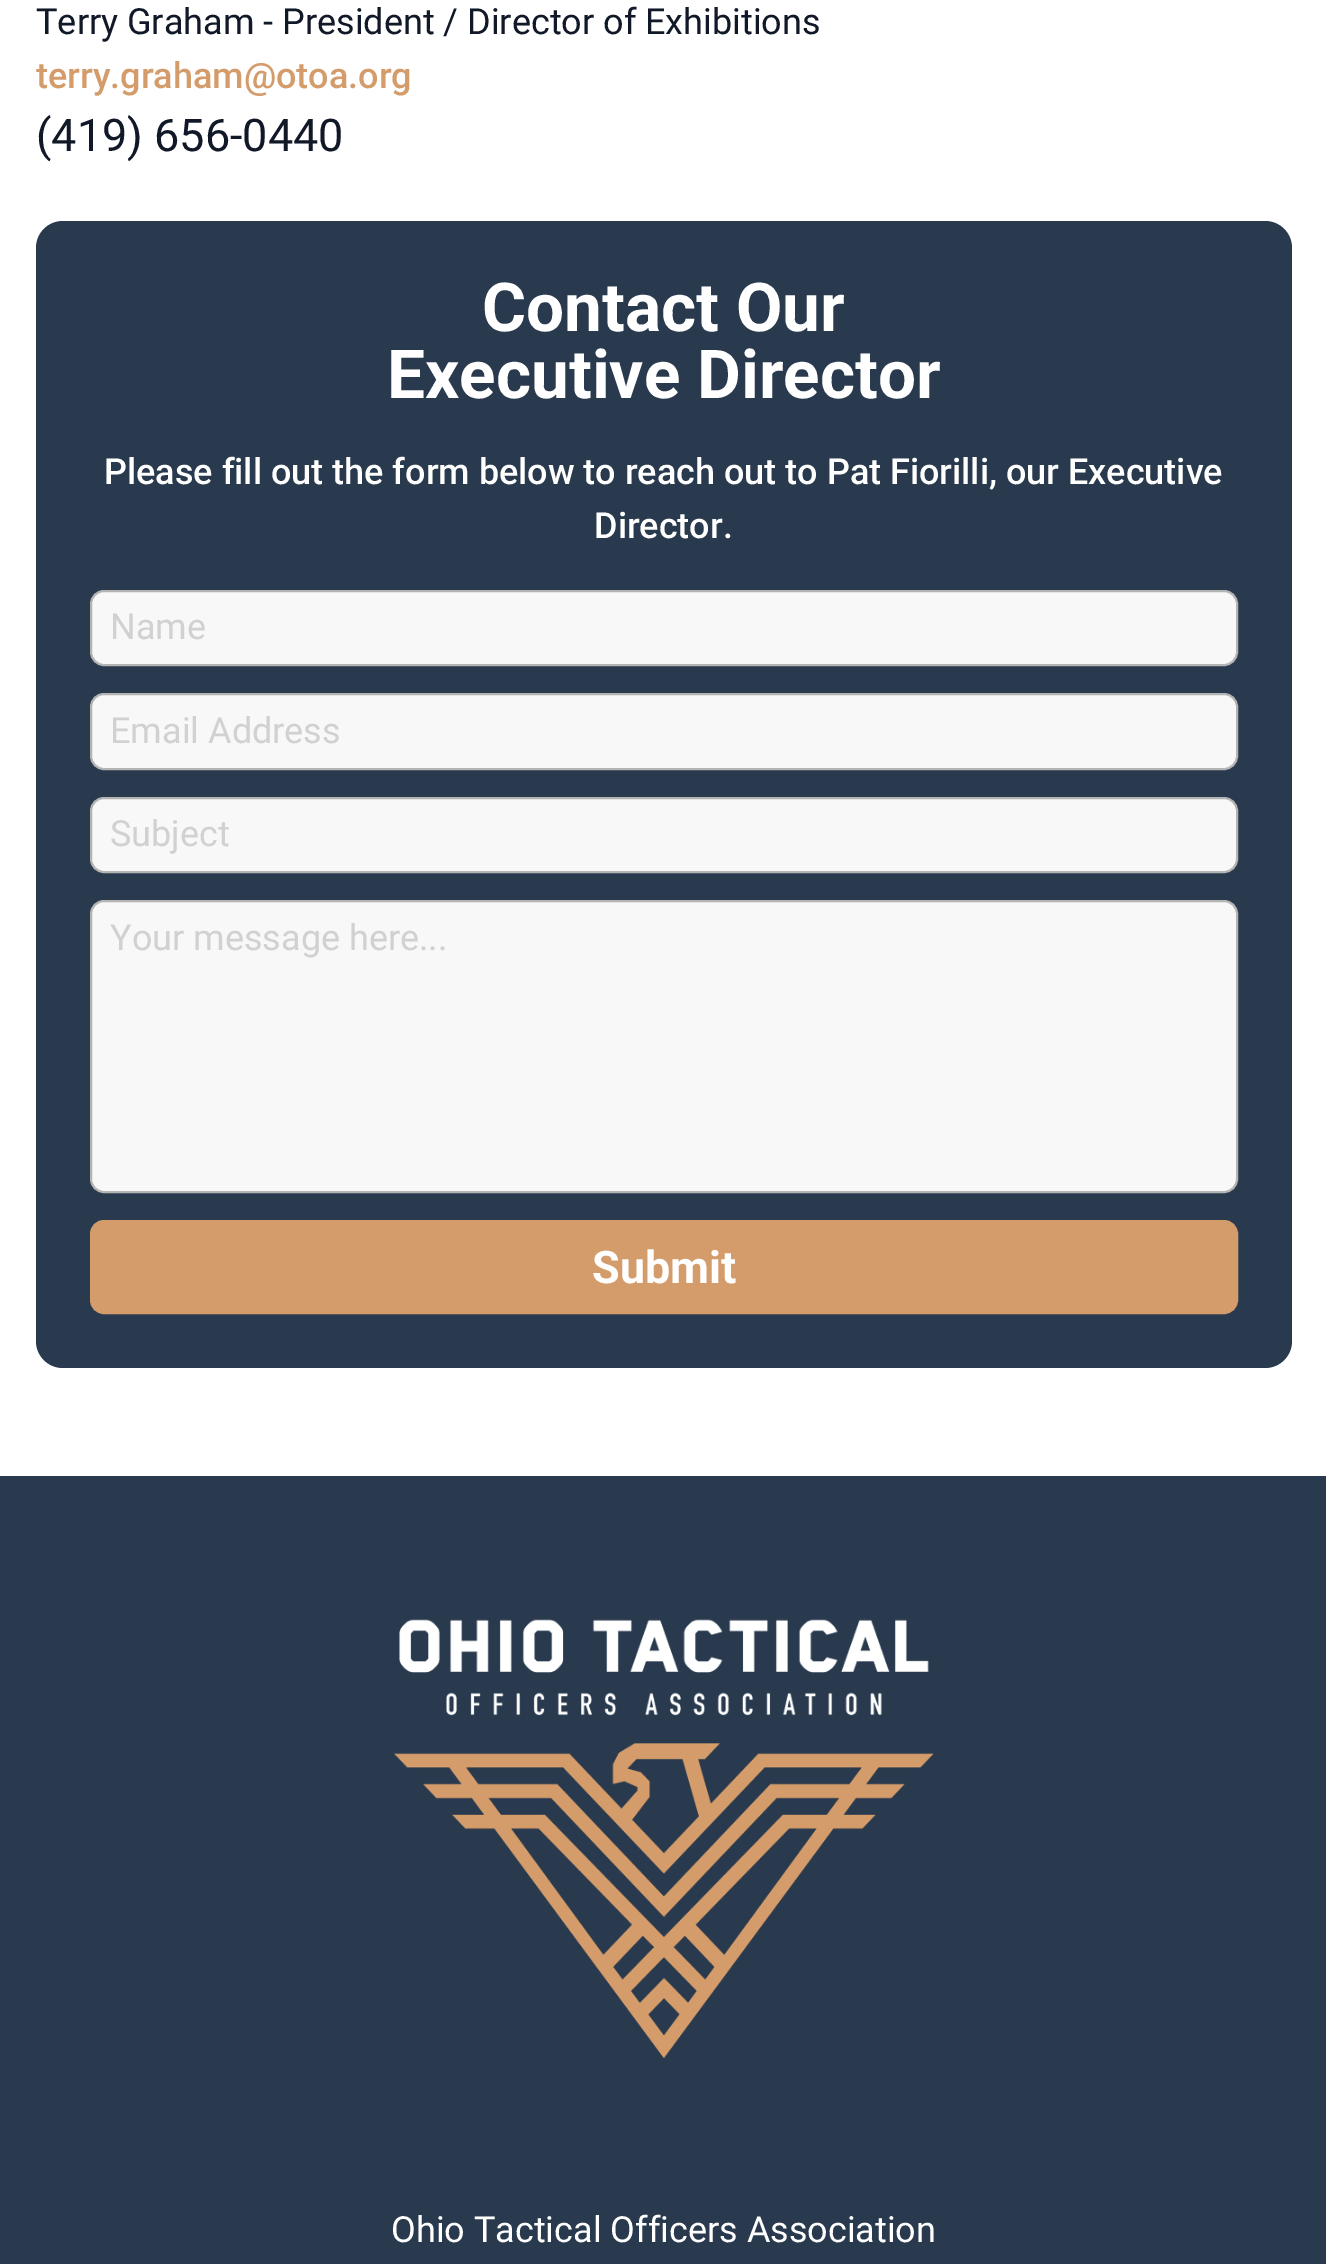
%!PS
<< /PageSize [1326 2264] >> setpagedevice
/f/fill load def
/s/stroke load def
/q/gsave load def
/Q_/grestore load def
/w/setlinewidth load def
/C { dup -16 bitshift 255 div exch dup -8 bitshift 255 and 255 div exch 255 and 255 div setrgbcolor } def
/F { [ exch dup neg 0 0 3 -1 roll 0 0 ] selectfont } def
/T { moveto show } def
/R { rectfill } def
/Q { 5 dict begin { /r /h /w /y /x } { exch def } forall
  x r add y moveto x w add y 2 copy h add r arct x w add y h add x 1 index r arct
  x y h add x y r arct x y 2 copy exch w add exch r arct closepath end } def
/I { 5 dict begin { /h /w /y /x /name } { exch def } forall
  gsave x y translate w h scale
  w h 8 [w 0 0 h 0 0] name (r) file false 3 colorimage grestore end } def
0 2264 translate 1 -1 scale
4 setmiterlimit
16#FFFFFF C
0 0 1326 2264 R
/Roboto-Regular 36 F
16#111827 C
(Terry Graham - President / Director of Exhibitions) 36 34 T
/Roboto-Medium 36 F
16#D49C6A C
(terry.graham@otoa.org) 36 88 T
/Roboto-Regular 45 F
16#111827 C
(\(419\) 656-0440) 36 151 T
16#293A4E C
36 221 1256 1147 27 Q f
/Roboto-Bold 67.5 F
16#FFFFFF C
(Contact Our) 482 331 T
(Executive Director) 387 398 T
/Roboto-Medium 36 F
(Please fill out the form below to reach out to Pat Fiorilli, our Executive) 104 484 T
(Director.) 594 538 T
16#F8F8F8 C
91 591 1146 74 13 Q q f Q_
16#B4B4B4 C
2 w
s
/Roboto-Regular 36 F
16#D1D1D1 C
(Name) 110 639 T
16#F8F8F8 C
91 694 1146 75 13 Q q f Q_
16#B4B4B4 C
s
16#D1D1D1 C
(Email Address) 110 743 T
16#F8F8F8 C
91 798 1146 74 13 Q q f Q_
16#B4B4B4 C
s
16#D1D1D1 C
(Subject) 110 846 T
16#F8F8F8 C
91 901 1146 291 13 Q q f Q_
16#B4B4B4 C
s
16#D1D1D1 C
(Your message here...) 110 950 T
16#D49C6A C
91 1221 1146 92 13 Q q f Q_
s
/Roboto-Bold 45 F
16#FFFFFF C
(Submit) 592 1283 T
16#293A4E C
0 1476 1326 788 R
(1.rgb) 394 1619 540 440 I
/Roboto-Regular 36 F
16#FFFFFF C
(Ohio Tactical Officers Association) 391 2242 T
showpage
